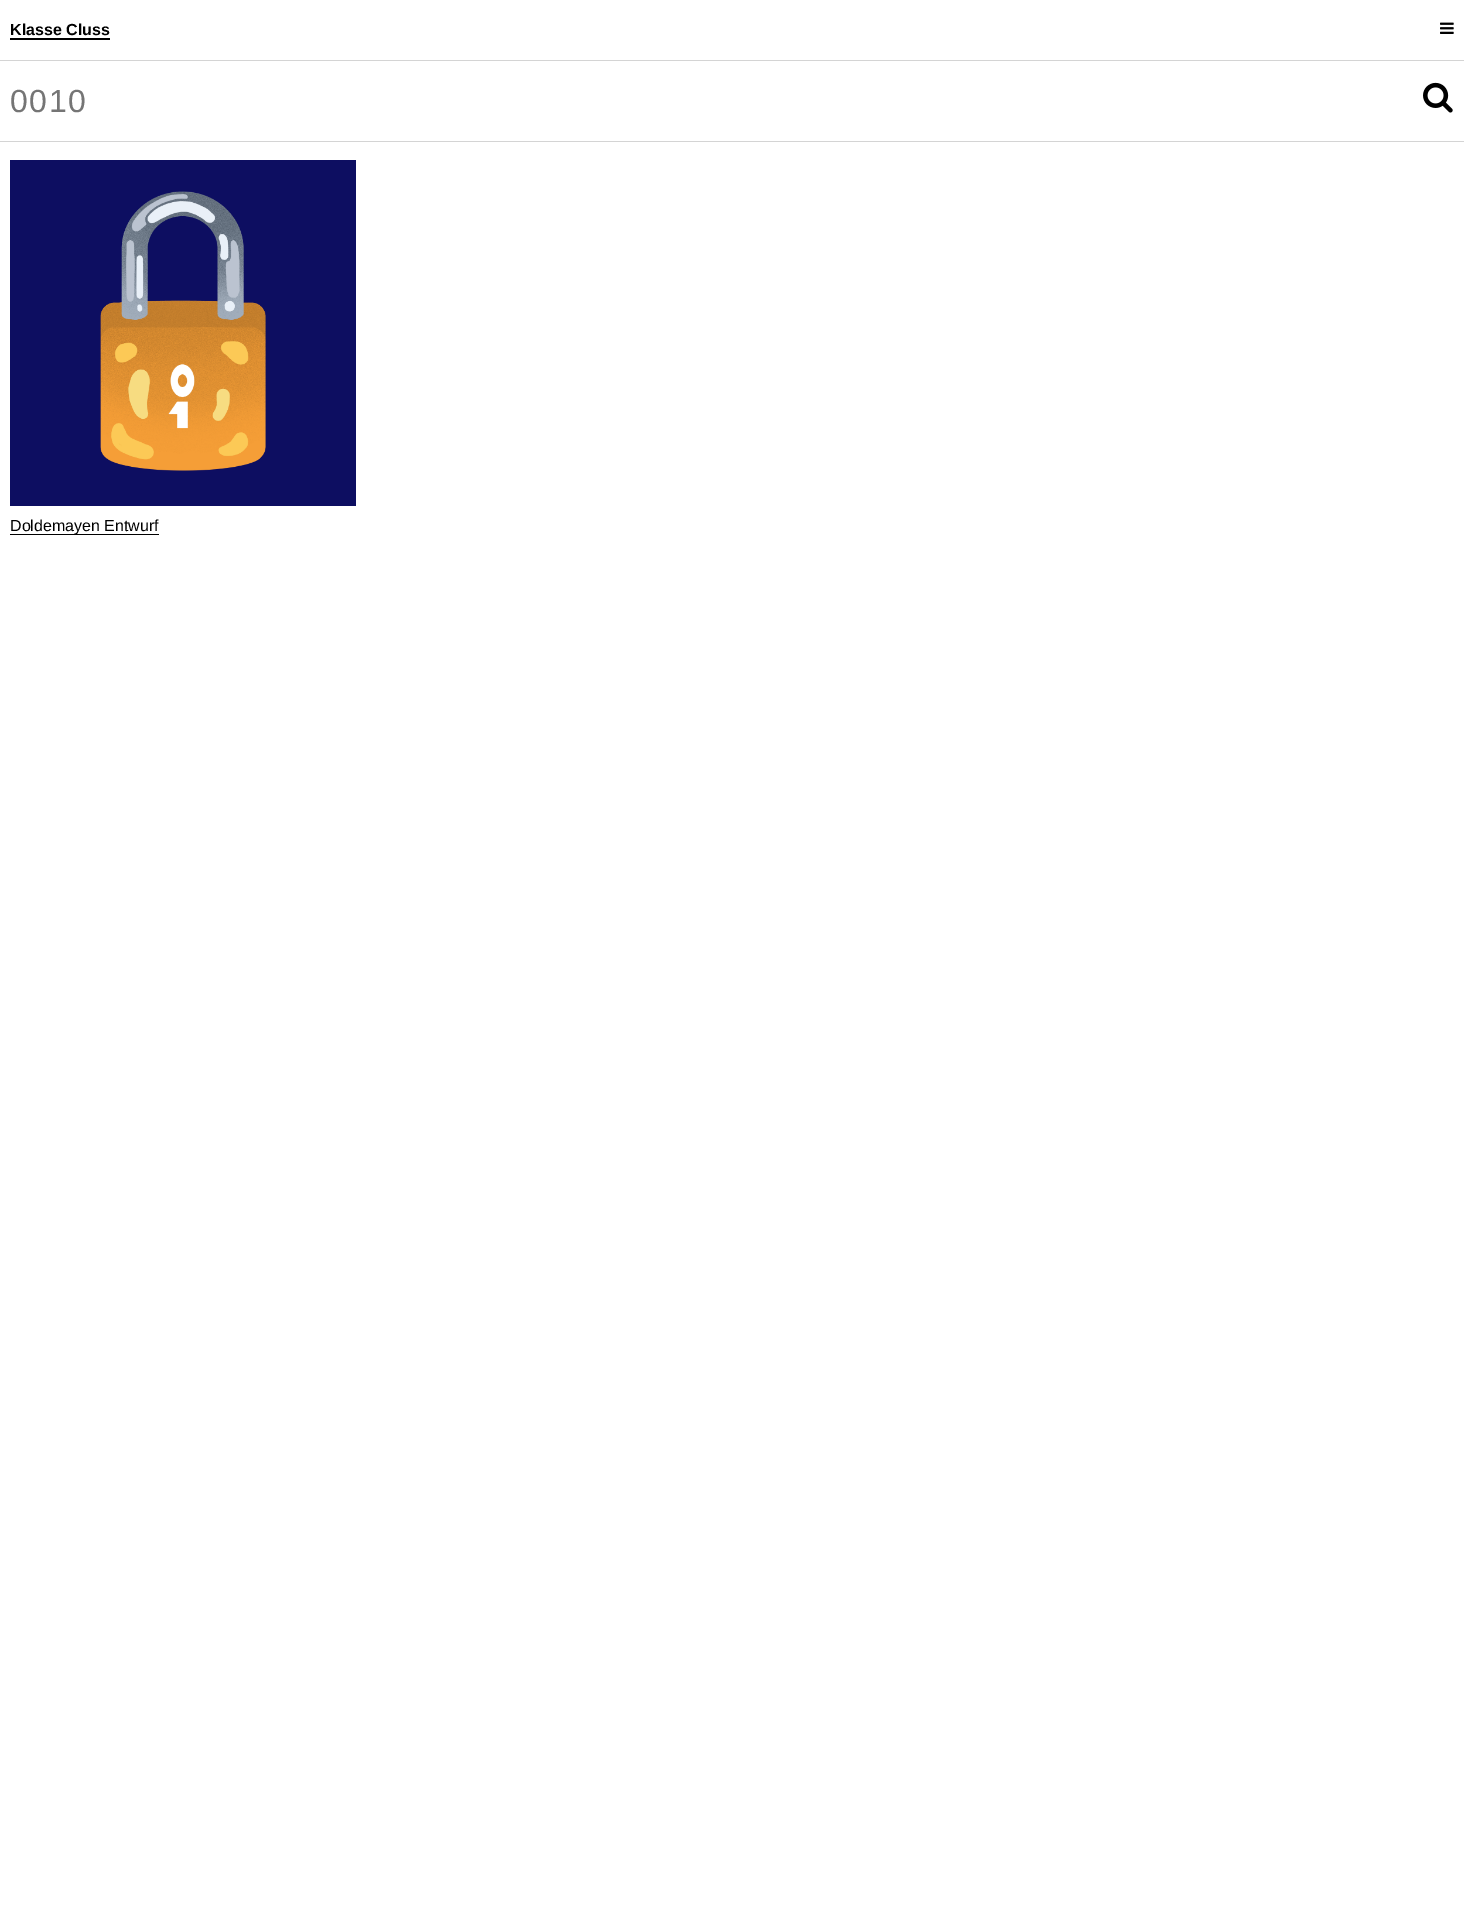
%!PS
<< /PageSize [1464 1929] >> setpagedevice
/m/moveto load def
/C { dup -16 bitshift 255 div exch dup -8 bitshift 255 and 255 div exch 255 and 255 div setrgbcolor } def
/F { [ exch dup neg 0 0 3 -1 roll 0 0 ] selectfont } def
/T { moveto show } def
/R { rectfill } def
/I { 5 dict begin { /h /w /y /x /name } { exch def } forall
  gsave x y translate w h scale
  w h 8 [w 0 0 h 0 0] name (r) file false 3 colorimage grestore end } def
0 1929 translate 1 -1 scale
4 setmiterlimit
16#FFFFFF C
0 0 1464 1929 R
16#D4D4D4 C
0 60 1464 1 R
/LiberationSans-Bold 16 F
16#000000 C
(Klasse Cluss) 10 35 T
10 38 100 2 R
(1.rgb) 1440 22 14 12 I
16#D4D4D4 C
0 141 1464 1 R
/LiberationSans-Regular 32 F
16#757575 C
10 112 m 1.5 0 (0010) ashow
(2.rgb) 1423 82 30 31 I
(3.rgb) 10 160 346 346 I
16#000000 C
10 534 149 1 R
/LiberationSans-Regular 16 F
(Doldemayen Entwurf) 10 531 T
showpage
